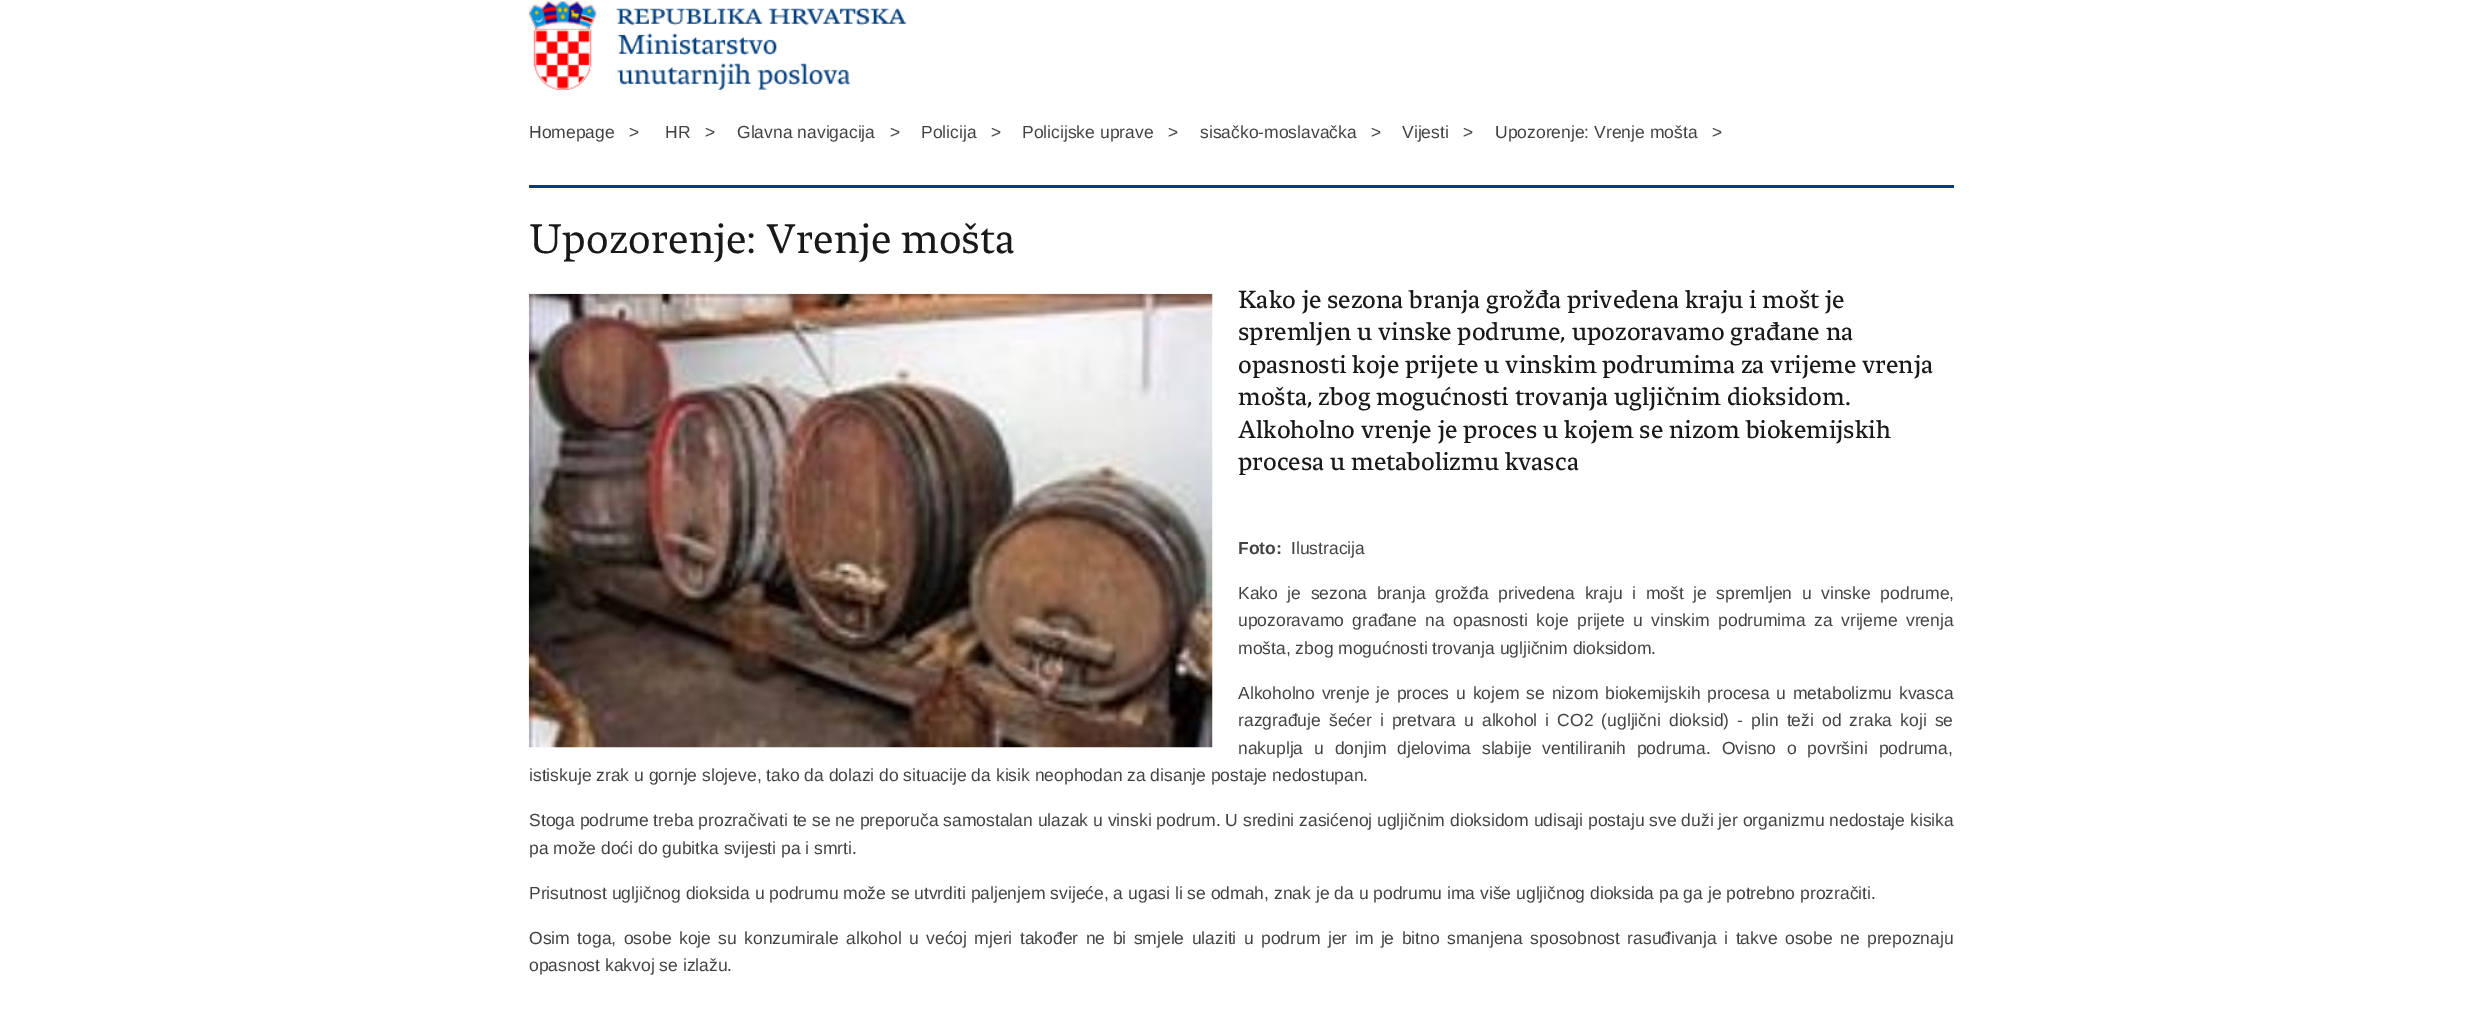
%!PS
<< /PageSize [2482 1025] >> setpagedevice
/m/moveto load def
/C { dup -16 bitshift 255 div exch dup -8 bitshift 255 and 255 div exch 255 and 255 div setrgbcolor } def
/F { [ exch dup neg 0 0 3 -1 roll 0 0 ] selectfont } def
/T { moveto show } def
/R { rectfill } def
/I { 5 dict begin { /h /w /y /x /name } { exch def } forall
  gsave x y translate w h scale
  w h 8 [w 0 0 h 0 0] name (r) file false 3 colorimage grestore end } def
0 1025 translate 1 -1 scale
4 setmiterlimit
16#FFFFFF C
0 0 2482 1025 R
(1.rgb) 528 1 379 89 I
/LiberationSans-Regular 17.5 F
16#424242 C
(Homepage   >) 529 138 T
(HR   >) 665 138 T
(Glavna navigacija   >) 737 138 T
(Policija   >) 921 138 T
(Policijske uprave   >) 1022 138 T
(sisačko-moslavačka   >) 1200 138 T
(Vijesti   >) 1402 138 T
(Upozorenje: Vrenje mošta   >) 1495 138 T
16#033E7C C
529 185 1425 3 R
/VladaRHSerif-Regular 43.75 F
16#191919 C
(Upozorenje: Vrenje mošta) 529 253 T
(2.rgb) 528 293 685 455 I
/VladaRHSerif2-Regular 26.25 F
(Kako je sezona branja grožđa privedena kraju i mošt je) 1238 308 T
(spremljen u vinske podrume, upozoravamo građane na) 1238 340 T
(opasnosti koje prijete u vinskim podrumima za vrijeme vrenja) 1238 373 T
(mošta, zbog mogućnosti trovanja ugljičnim dioksidom.) 1238 405 T
(Alkoholno vrenje je proces u kojem se nizom biokemijskih) 1238 438 T
(procesa u metabolizmu kvasca) 1238 470 T
/LiberationSans-Bold 17.5 F
16#424242 C
(Foto:) 1238 554 T
/LiberationSans-Regular 17.5 F
(Ilustracija) 1291 554 T
1238 599 m 4.75 0 32 (Kako je sezona branja grožđa privedena kraju i mošt je spremljen u vinske podrume,) widthshow
1238 626 m 3.6 0 32 (upozoravamo građane na opasnosti koje prijete u vinskim podrumima za vrijeme vrenja) widthshow
(mošta, zbog mogućnosti trovanja ugljičnim dioksidom.) 1238 654 T
1238 699 m 2 0 32 (Alkoholno vrenje je proces u kojem se nizom biokemijskih procesa u metabolizmu kvasca) widthshow
1238 726 m 3.25 0 32 (razgrađuje šećer i pretvara u alkohol i CO2 \(ugljični dioksid\) - plin teži od zraka koji se) widthshow
1238 754 m 6 0 32 (nakuplja u donjim djelovima slabije ventiliranih podruma. Ovisno o površini podruma,) widthshow
(istiskuje zrak u gornje slojeve, tako da dolazi do situacije da kisik neophodan za disanje postaje nedostupan.) 529 781 T
(Stoga podrume treba prozračivati te se ne preporuča samostalan ulazak u vinski podrum. U sredini zasićenoj ugljičnim dioksidom udisaji postaju sve duži jer organizmu nedostaje kisika) 529 826 T
(pa može doći do gubitka svijesti pa i smrti.) 529 854 T
(Prisutnost ugljičnog dioksida u podrumu može se utvrditi paljenjem svijeće, a ugasi li se odmah, znak je da u podrumu ima više ugljičnog dioksida pa ga je potrebno prozračiti.) 529 899 T
529 944 m 2.6 0 32 (Osim toga, osobe koje su konzumirale alkohol u većoj mjeri također ne bi smjele ulaziti u podrum jer im je bitno smanjena sposobnost rasuđivanja i takve osobe ne prepoznaju) widthshow
(opasnost kakvoj se izlažu.) 529 971 T
showpage
